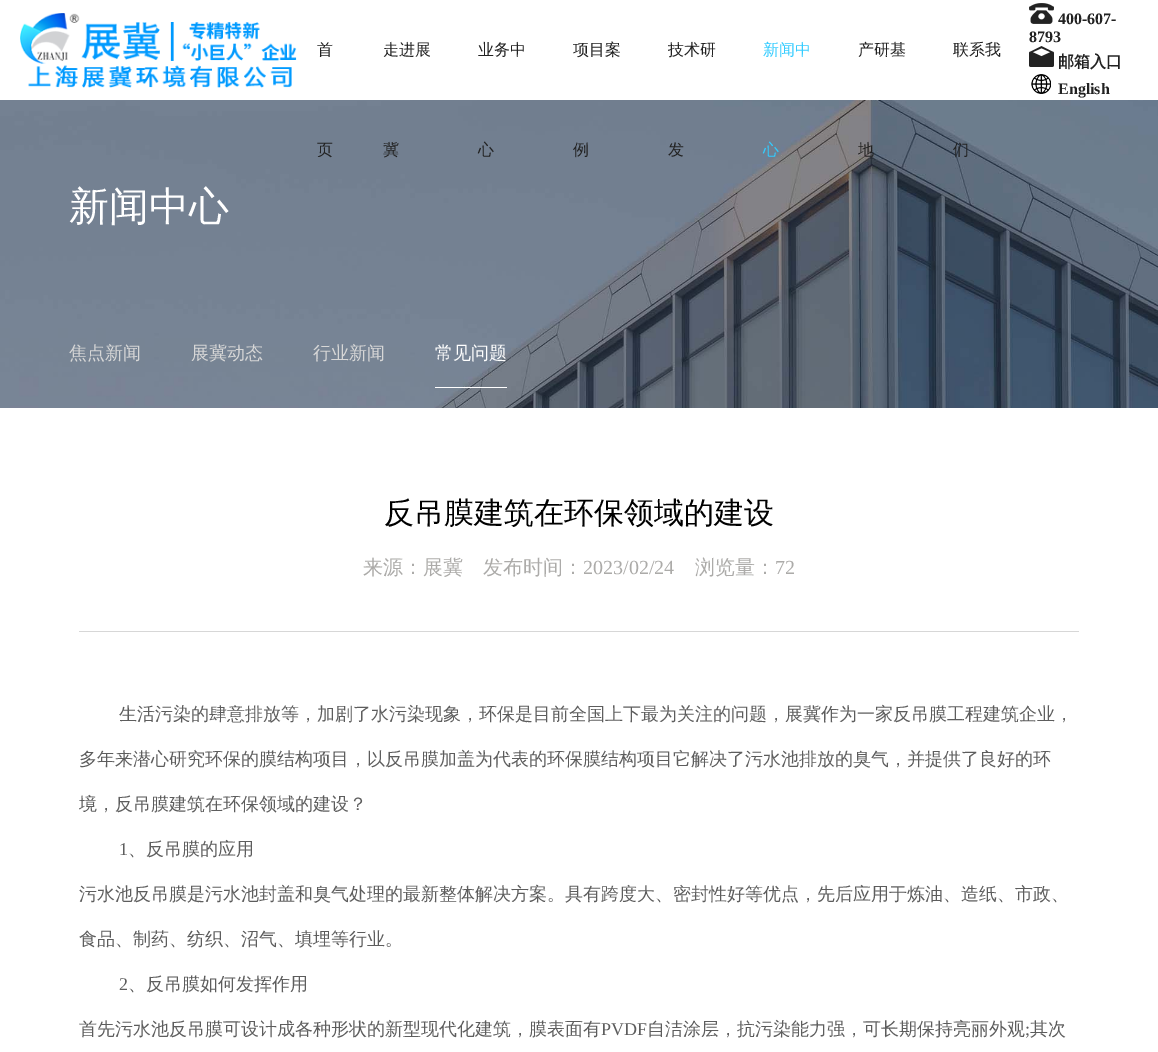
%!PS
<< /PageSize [1158 1052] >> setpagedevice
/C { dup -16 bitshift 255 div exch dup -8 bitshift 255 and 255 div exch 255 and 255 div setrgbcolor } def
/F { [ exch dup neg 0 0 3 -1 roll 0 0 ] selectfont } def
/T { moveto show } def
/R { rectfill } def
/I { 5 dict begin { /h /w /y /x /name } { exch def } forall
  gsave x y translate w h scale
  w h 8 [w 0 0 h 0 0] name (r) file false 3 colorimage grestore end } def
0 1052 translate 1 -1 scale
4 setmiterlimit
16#FFFFFF C
0 0 1158 1052 R
(1.rgb) 20 13 277 75 I
/WenQuanYiZenHei-Medium 16 F
16#222222 C
(首) 317 55 T
(5.rgb) 0 100 1158 308 I
(页) 317 155 T
(走进展) 383 55 T
(冀) 383 155 T
(业务中) 478 55 T
(心) 478 155 T
(项目案) 573 55 T
(例) 573 155 T
(技术研) 668 55 T
(发) 668 155 T
16#33CCFF C
(新闻中) 763 55 T
(心) 763 155 T
16#222222 C
(产研基) 858 55 T
(地) 858 155 T
(联系我) 953 55 T
(们) 953 155 T
(2.rgb) 1029 3 25 21 I
/LiberationSerif-Bold 16 F
(400-607-) 1058 24 T
(8793) 1029 42 T
(3.rgb) 1029 46 25 21 I
/WenQuanYiZenHei-Bold 16 F
(邮箱入口) 1058 67 T
(4.rgb) 1031 74 20 20 I
/LiberationSerif-Bold 16 F
(English) 1058 94 T
/WenQuanYiZenHei-Medium 40 F
16#FFFFFF C
(新闻中心) 69 220 T
/WenQuanYiZenHei-Medium 18 F
16#D7D7D7 C
(焦点新闻) 69 359 T
(展冀动态) 191 359 T
(行业新闻) 313 359 T
16#FFFFFF C
435 387 72 1 R
(常见问题) 435 359 T
/WenQuanYiZenHei-Medium 30 F
16#000000 C
(反吊膜建筑在环保领域的建设) 384 523 T
/WenQuanYiZenHei-Medium 20 F
16#ACABA9 C
(来源：展冀) 363 574 T
(发布时间：) 483 574 T
/LiberationSerif-Regular 20 F
(2023/02/24) 583 574 T
/WenQuanYiZenHei-Medium 20 F
(浏览量：) 695 574 T
/LiberationSerif-Regular 20 F
(72) 775 574 T
16#D7D7D7 C
79 631 1000 1 R
/WenQuanYiZenHei-Medium 18 F
16#5D5D5D C
(生活污染的肆意排放等，加剧了水污染现象，环保是目前全国上下最为关注的问题，展冀作为一家反吊膜工程建筑企业，) 119 720 T
(多年来潜心研究环保的膜结构项目，以反吊膜加盖为代表的环保膜结构项目它解决了污水池排放的臭气，并提供了良好的环) 79 765 T
(境，反吊膜建筑在环保领域的建设？) 79 810 T
/LiberationSerif-Regular 18 F
(1) 119 855 T
/WenQuanYiZenHei-Medium 18 F
(、反吊膜的应用) 128 855 T
(污水池反吊膜是污水池封盖和臭气处理的最新整体解决方案。具有跨度大、密封性好等优点，先后应用于炼油、造纸、市政、) 79 900 T
(食品、制药、纺织、沼气、填埋等行业。) 79 945 T
/LiberationSerif-Regular 18 F
(2) 119 990 T
/WenQuanYiZenHei-Medium 18 F
(、反吊膜如何发挥作用) 128 990 T
(首先污水池反吊膜可设计成各种形状的新型现代化建筑，膜表面有) 79 1035 T
/LiberationSerif-Regular 18 F
(PVDF) 601 1035 T
/WenQuanYiZenHei-Medium 18 F
(自洁涂层，抗污染能力强，可长期保持亮丽外观) 647 1035 T
/LiberationSerif-Regular 18 F
(;) 1025 1035 T
/WenQuanYiZenHei-Medium 18 F
(其次) 1030 1035 T
showpage
